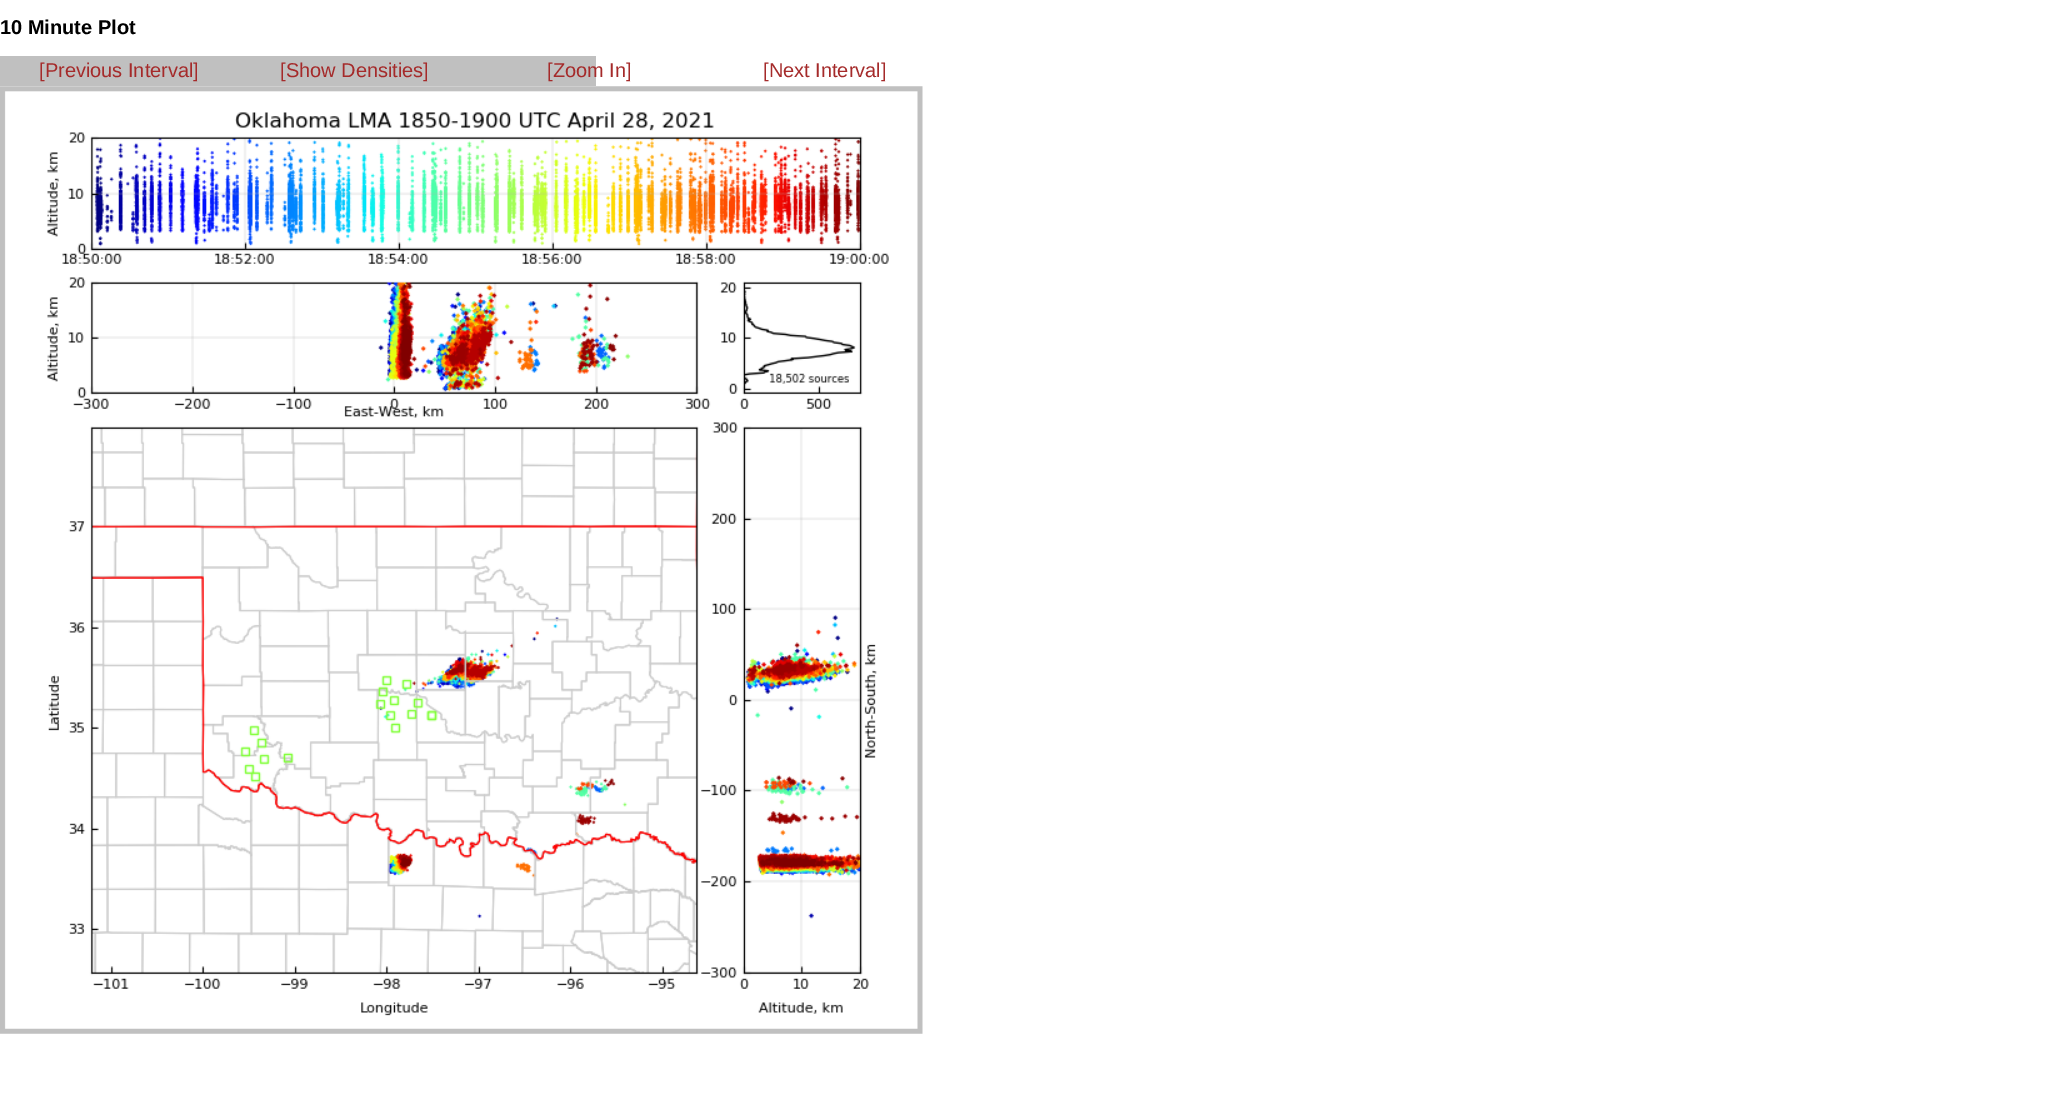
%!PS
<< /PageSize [2054 1111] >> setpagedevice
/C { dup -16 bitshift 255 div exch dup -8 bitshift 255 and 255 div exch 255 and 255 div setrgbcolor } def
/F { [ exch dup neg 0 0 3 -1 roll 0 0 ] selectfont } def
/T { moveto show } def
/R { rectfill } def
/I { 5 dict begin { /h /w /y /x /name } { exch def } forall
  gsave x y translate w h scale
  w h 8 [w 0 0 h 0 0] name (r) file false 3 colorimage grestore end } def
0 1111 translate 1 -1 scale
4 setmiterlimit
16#FFFFFF C
0 0 2054 1111 R
/LiberationSans-Bold 20 F
16#000000 C
(10 Minute Plot) 0 34 T
16#C0C0C0 C
0 56 596 30 R
/LiberationSans-Regular 20 F
16#A52A2A C
([Previous Interval]) 39 77 T
([Show Densities]) 280 77 T
([Zoom In]) 547 77 T
([Next Interval]) 763 77 T
(1.rgb) 0 86 923 948 I
showpage
